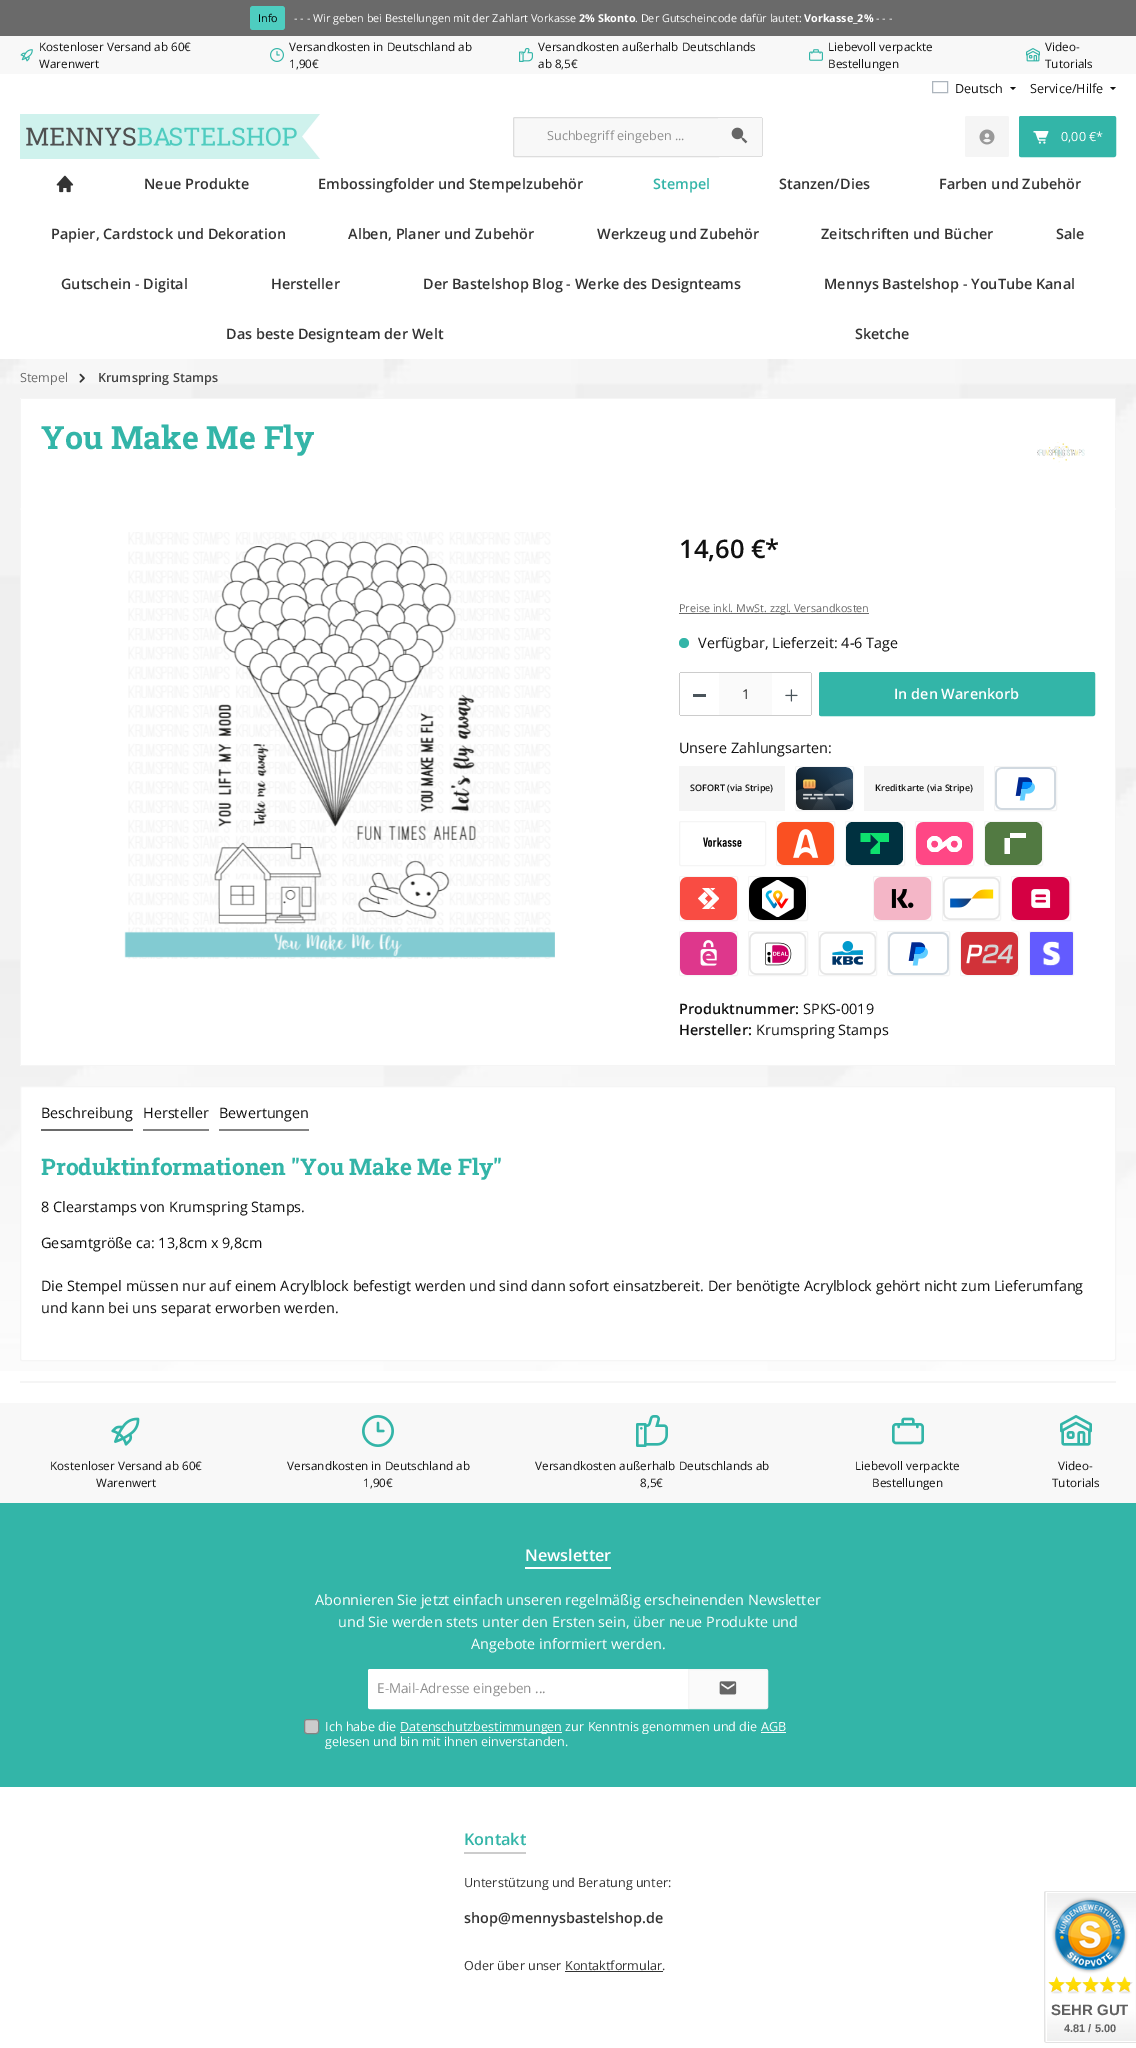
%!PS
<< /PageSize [1136 2048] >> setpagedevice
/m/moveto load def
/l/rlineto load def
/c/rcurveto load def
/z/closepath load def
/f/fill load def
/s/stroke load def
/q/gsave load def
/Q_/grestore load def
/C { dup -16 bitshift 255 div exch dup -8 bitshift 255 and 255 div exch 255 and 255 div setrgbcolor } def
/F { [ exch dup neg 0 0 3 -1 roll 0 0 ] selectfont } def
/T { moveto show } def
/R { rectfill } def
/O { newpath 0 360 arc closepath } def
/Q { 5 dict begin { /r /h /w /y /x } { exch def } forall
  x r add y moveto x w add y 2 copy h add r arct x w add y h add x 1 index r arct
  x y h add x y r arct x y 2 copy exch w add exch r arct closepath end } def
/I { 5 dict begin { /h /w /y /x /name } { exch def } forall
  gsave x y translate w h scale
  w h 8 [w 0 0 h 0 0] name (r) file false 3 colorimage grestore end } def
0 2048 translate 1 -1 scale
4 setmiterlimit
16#FFFFFF C
0 0 1136 2048 R
(1.rgb) 0 359 1136 1012 I
16#6A6A6A C
0 0 1136 36 R
16#4ECDC0 C
250 6 35 24 3 Q f
/OpenSans-Regular 10.8 F
16#000000 C
(Info) 258 22 T
16#FFFFFF C
(- - - Wir geben bei Bestellungen mit der Zahlart Vorkasse) 294 22 T
/OpenSans-Bold 10.8 F
(2% Skonto) 579 22 T
/OpenSans-Regular 10.8 F
(. Der Gutscheincode dafür lautet:) 635 22 T
/OpenSans-Bold 10.8 F
(Vorkasse_2%) 804 22 T
/OpenSans-Regular 10.8 F
(- - -) 876 22 T
16#F8F8F8 C
0 36 1136 38 R
(2.rgb) 20 49 13 13 I
/OpenSans-Regular 11.7 F
16#111111 C
(Kostenloser Versand ab 60€) 39 51 T
(Warenwert) 39 68 T
(3.rgb) 270 48 14 14 I
(Versandkosten in Deutschland ab) 289 51 T
(1,90€) 289 68 T
(4.rgb) 519 48 14 14 I
(Versandkosten außerhalb Deutschlands) 538 51 T
(ab 8,5€) 538 68 T
(5.rgb) 809 49 14 12 I
(Liebevoll verpackte) 828 51 T
(Bestellungen) 828 68 T
(6.rgb) 1026 48 14 14 I
(Video-) 1045 51 T
(Tutorials) 1045 68 T
16#ADB5BD C
932.5 81.5 15 11 rectstroke
/OpenSans-Regular 12.6 F
16#111111 C
(Deutsch) 955 93 T
1010 87 m 6 0 l -3 3 l z f
(Service/Hilfe) 1030 93 T
1110 87 m 6 0 l -3 3 l z f
(7.rgb) 20 114 300 45 I
16#F8F8F8 C
515 117.5 m 203.5 0 l 0 39 l -203.5 0 l -1 0 -1.5 -.5 -1.5 -1.5 c 0 -36 l 0 -1 .5 -1.5 1.5 -1.5 c z q f Q_
16#DDDDDD C
s
16#8E8E8E C
(Suchbegriff eingeben ...) 547 140 T
16#F8F8F8 C
718 117 m 43 0 l 1 0 2 1 2 2 c 0 36 l 0 1 -1 2 -2 2 c -43 0 l z f
16#DDDDDD C
718 117 44 1 R
762 118 1 38 R
718 156 44 1 R
(8.rgb) 731 127 17 17 I
16#F5F5F5 C
965 116 44 41 2 Q f
(9.rgb) 979 129 16 16 I
16#33B5A8 C
1019.5 116.5 96 40 1.5 Q q f Q_
s
(10.rgb) 1033 131 16 13 I
16#FFFFFF C
(0,00 €*) 1061 141 T
(11.rgb) 56 175 18 18 I
/OpenSans-SemiBold 14.4 F
16#333333 C
(Neue Produkte) 144 189 T
(Embossingfolder und Stempelzubehör) 318 189 T
16#33B5A8 C
(Stempel) 653 189 T
16#333333 C
(Stanzen/Dies) 779 189 T
(Farben und Zubehör) 939 189 T
(Papier, Cardstock und Dekoration) 51 239 T
(Alben, Planer und Zubehör) 348 239 T
(Werkzeug und Zubehör) 597 239 T
(Zeitschriften und Bücher) 821 239 T
(Sale) 1056 239 T
(Gutschein - Digital) 61 289 T
(Hersteller) 271 289 T
(Der Bastelshop Blog - Werke des Designteams) 423 289 T
(Mennys Bastelshop - YouTube Kanal) 824 289 T
(Das beste Designteam der Welt) 226 339 T
(Sketche) 855 339 T
/OpenSans-Regular 12.6 F
16#6A6A6A C
(Stempel) 20 382 T
(12.rgb) 79 373 6 10 I
/OpenSans-SemiBold 12.6 F
16#444444 C
(Krumspring Stamps) 98 382 T
16#FFFFFF C
20 398 1096 111 2 Q f
16#F5F5F5 C
21 398 1094 1 R
1115 399 1 109 R
20 399 1 109 R
/RobotoSlab-Bold 32.1 F
16#33B5A8 C
(You Make Me Fly) 41 449 T
(13.rgb) 1037 442 48 21 I
16#FFFFFF C
20 509 1096 557 2 Q f
16#F5F5F5 C
1115 510 1 555 R
21 1065 1094 1 R
20 510 1 555 R
(14.rgb) 124 532 431 427 I
/OpenSans-SemiBold 25.5 F
16#111111 C
(14,60 €*) 679 558 T
16#6A6A6A C
679 613 190 1 R
/OpenSans-Regular 10.8 F
(Preise inkl. MwSt. zzgl. Versandkosten) 679 612 T
16#33B5A8 C
684 643 5 O f
/OpenSans-Regular 14.4 F
16#111111 C
(Verfügbar, Lieferzeit: 4-6 Tage) 698 648 T
16#CCCCCC C
718 672 55 1 R
718 715 55 1 R
16#FFFFFF C
681 672 m 38 0 l 0 44 l -38 0 l -1 0 -2 -1 -2 -2 c 0 -40 l 0 -1 1 -2 2 -2 c z f
16#CCCCCC C
680 672 39 1 R
680 715 39 1 R
679 673 1 42 R
16#4A545B C
693 694 13 3 R
16#FAFAFA C
719 673 53 42 R
/OpenSans-Regular 13.5 F
16#222222 C
(1) 742 699 T
16#FFFFFF C
772 672 m 38 0 l 1 0 2 1 2 2 c 0 40 l 0 1 -1 2 -2 2 c -38 0 l z f
16#CCCCCC C
772 672 39 1 R
811 673 1 42 R
772 715 39 1 R
(15.rgb) 785 689 13 13 I
16#33B5A8 C
819.5 672.5 275 43 1.5 Q q f Q_
s
/OpenSans-SemiBold 14.4 F
16#FFFFFF C
(In den Warenkorb) 894 699 T
/OpenSans-Regular 14.4 F
16#111111 C
(Unsere Zahlungsarten:) 679 753 T
16#F5F5F5 C
679 766 106 45 R
/OpenSans-SemiBold 9 F
16#111111 C
(SOFORT \(via Stripe\)) 690 791 T
16#F5F5F5 C
795.5 766.5 58 44 1.5 Q s
(16.rgb) 796 767 57 43 I
864 766 120 45 R
16#111111 C
(Kreditkarte \(via Stripe\)) 875 791 T
16#F5F5F5 C
994.5 766.5 62 44 1.5 Q s
(17.rgb) 995 767 61 43 I
679.5 821.5 86 44 1.5 Q s
(18.rgb) 703 837 39 10 I
776.5 821.5 58 44 1.5 Q s
(19.rgb) 777 822 57 43 I
845.5 821.5 59 44 1.5 Q s
16#003140 C
846 822 57 43 7 Q f
16#0EE06E C
860.5 842 m 10 0 l 0 -8 l 8 8 l -8 8 l 0 4 l 9.5 0 l 0 -12 l 9 0 l 0 -9 l -28.5 0 l z f
16#F5F5F5 C
915.5 821.5 58 44 1.5 Q s
(20.rgb) 916 822 57 43 I
984.5 821.5 58 44 1.5 Q s
16#527A42 C
985 822 57 43 7 Q f
16#FFFFFF C
1004.5 838 m 5.5 0 l 0 16 l -5.5 0 l z 1010 833 m 16 0 l 0 5 l -16 0 l z f
16#F5F5F5 C
679.5 876.5 58 44 1.5 Q s
(21.rgb) 680 877 57 43 I
748.5 876.5 59 44 1.5 Q s
(22.rgb) 749 877 57 43 I
873.5 876.5 58 44 1.5 Q s
(23.rgb) 874 877 57 43 I
942.5 876.5 58 44 1.5 Q s
(24.rgb) 943 877 57 43 I
1011.5 876.5 59 44 1.5 Q s
(25.rgb) 1012 877 58 43 I
679.5 931.5 58 44 1.5 Q s
(26.rgb) 680 932 57 43 I
748.5 931.5 59 44 1.5 Q s
(27.rgb) 749 932 58 43 I
818.5 931.5 58 44 1.5 Q s
(28.rgb) 819 932 57 43 I
887.5 931.5 62 44 1.5 Q s
(17.rgb) 888 932 61 43 I
960.5 931.5 58 44 1.5 Q s
(29.rgb) 961 932 57 43 I
1029.5 931.5 44 44 1.5 Q s
(30.rgb) 1030 932 43 43 I
/OpenSans-SemiBold 14.4 F
16#111111 C
(Produktnummer:) 679 1014 T
/OpenSans-Regular 14.4 F
(SPKS-0019) 803 1014 T
/OpenSans-SemiBold 14.4 F
(Hersteller:) 679 1035 T
/OpenSans-Regular 14.4 F
(Krumspring Stamps) 756 1035 T
16#FFFFFF C
20.5 1086.5 1095 274 1.5 Q q f Q_
16#F5F5F5 C
s
16#6A6A6A C
41 1129 92 2 R
16#111111 C
(Beschreibung) 41 1118 T
16#838383 C
143 1129 66 2 R
16#111111 C
(Hersteller) 143 1118 T
16#838383 C
219 1129 90 2 R
16#111111 C
(Bewertungen) 219 1118 T
/RobotoSlab-Bold 22.75 F
16#33B5A8 C
(Produktinformationen "You Make Me Fly") 41 1175 T
/OpenSans-Regular 14.4 F
16#111111 C
(8 Clearstamps von Krumspring Stamps.) 41 1212 T
(Gesamtgröße ca: 13,8cm x 9,8cm) 41 1248 T
(Die Stempel müssen nur auf einem Acrylblock befestigt werden und sind dann sofort einsatzbereit. Der benötigte Acrylblock gehört nicht zum Lieferumfang) 41 1291 T
(und kann bei uns separat erworben werden.) 41 1313 T
16#F5F5F5 C
20 1381 1096 2 1 Q f
16#F8F8F8 C
0 1403 1136 100 R
(31.rgb) 111 1417 29 29 I
/OpenSans-Regular 11.7 F
16#111111 C
(Kostenloser Versand ab 60€) 50 1470 T
(Warenwert) 96 1487 T
(32.rgb) 362 1415 32 32 I
(Versandkosten in Deutschland ab) 287 1470 T
(1,90€) 363 1487 T
(33.rgb) 636 1415 32 32 I
(Versandkosten außerhalb Deutschlands ab) 535 1470 T
(8,5€) 640 1487 T
(34.rgb) 892 1417 32 28 I
(Liebevoll verpackte) 855 1470 T
(Bestellungen) 872 1487 T
(35.rgb) 1060 1415 32 31 I
(Video-) 1058 1470 T
(Tutorials) 1052 1487 T
16#33B5A8 C
0 1503 1136 284 R
16#FFFFFF C
525 1567 86 2 R
/OpenSans-SemiBold 16.25 F
(Newsletter) 525 1561 T
/OpenSans-Regular 14.4 F
(Abonnieren Sie jetzt einfach unseren regelmäßig erscheinenden Newsletter) 315 1605 T
(und Sie werden stets unter den Ersten sein, über neue Produkte und) 338 1627 T
(Angebote informiert werden.) 471 1649 T
370 1669.5 m 317.5 0 l 0 39 l -317.5 0 l -1 0 -1.5 -.5 -1.5 -1.5 c 0 -36 l 0 -1 .5 -1.5 1.5 -1.5 c z q f Q_
s
/OpenSans-Regular 13.5 F
16#8E8E8E C
(E-Mail-Adresse eingeben ...) 377 1693 T
16#FAFAFA C
688.5 1669.5 m 77.5 0 l 1 0 1.5 .5 1.5 1.5 c 0 36 l 0 1 -.5 1.5 -1.5 1.5 c -77.5 0 l z q f Q_
16#F5F5F5 C
s
(36.rgb) 719 1681 18 14 I
16#CCCCCC C
304.5 1719.5 14 14 2.5 Q q f Q_
16#838383 C
s
/OpenSans-Regular 12.6 F
16#FFFFFF C
(Ich habe die) 325 1731 T
400 1732 162 1 R
(Datenschutzbestimmungen zur Kenntnis genommen und die AGB) 400 1731 T
761 1732 25 1 R
(gelesen und bin mit ihnen einverstanden.) 325 1746 T
16#CCCCCC C
464 1852 62 2 R
/OpenSans-SemiBold 16.25 F
16#33B5A8 C
(Kontakt) 464 1845 T
/OpenSans-Regular 12.6 F
16#333333 C
(Unterstützung und Beratung unter:) 464 1887 T
/OpenSans-SemiBold 14.4 F
(shop@mennysbastelshop.de) 464 1923 T
/OpenSans-Regular 12.6 F
(Oder über unser Kontaktformular.) 464 1970 T
565 1971 98 1 R
(37.rgb) 1044 1891 92 152 I
(38.rgb) 1048 1976 82 16 I
/LiberationSans-Bold 15 F
16#606060 C
(SEHR GUT) 1051 2015 T
/LiberationSans-Bold 11 F
(4.81 / 5.00) 1064 2032 T
showpage
